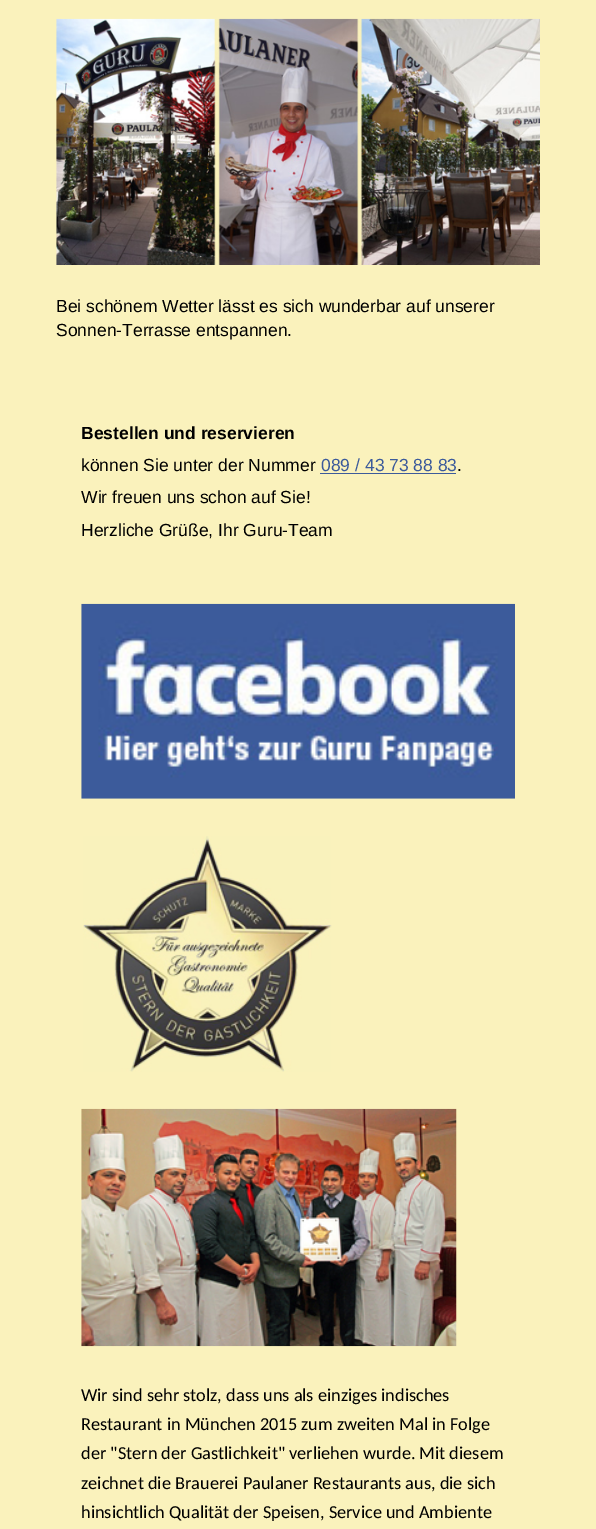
%!PS
<< /PageSize [596 1529] >> setpagedevice
/C { dup -16 bitshift 255 div exch dup -8 bitshift 255 and 255 div exch 255 and 255 div setrgbcolor } def
/F { [ exch dup neg 0 0 3 -1 roll 0 0 ] selectfont } def
/T { moveto show } def
/R { rectfill } def
/I { 5 dict begin { /h /w /y /x /name } { exch def } forall
  gsave x y translate w h scale
  w h 8 [w 0 0 h 0 0] name (r) file false 3 colorimage grestore end } def
0 1529 translate 1 -1 scale
4 setmiterlimit
16#FAF2BC C
0 0 596 1529 R
(1.rgb) 56 18 484 247 I
/LiberationSans-Regular 17.5 F
16#000000 C
(Bei schönem Wetter lässt es sich wunderbar auf unserer) 56 312 T
(Sonnen-Terrasse entspannen.) 56 336 T
/LiberationSans-Bold 17.5 F
(Bestellen und reservieren) 81 439 T
/LiberationSans-Regular 17.5 F
(können Sie unter der Nummer) 81 471 T
16#3C5B9B C
(089 / 43 73 88 83) 321 471 T
320 473 136 1 R
16#000000 C
(.) 457 471 T
(Wir freuen uns schon auf Sie!) 81 503 T
(Herzliche Grüße, Ihr Guru-Team) 81 536 T
(2.rgb) 81 603 434 196 I
(3.rgb) 83 836 249 236 I
(4.rgb) 81 1108 376 239 I
/Carlito-Regular 18.3 F
(Wir sind sehr stolz, dass uns als einziges indisches) 81 1401 T
(Restaurant in München 2015 zum zweiten Mal in Folge) 81 1430 T
(der "Stern der Gastlichkeit" verliehen wurde. Mit diesem) 81 1459 T
(zeichnet die Brauerei Paulaner Restaurants aus, die sich) 81 1489 T
(hinsichtlich Qualität der Speisen, Service und Ambiente) 81 1518 T
showpage
